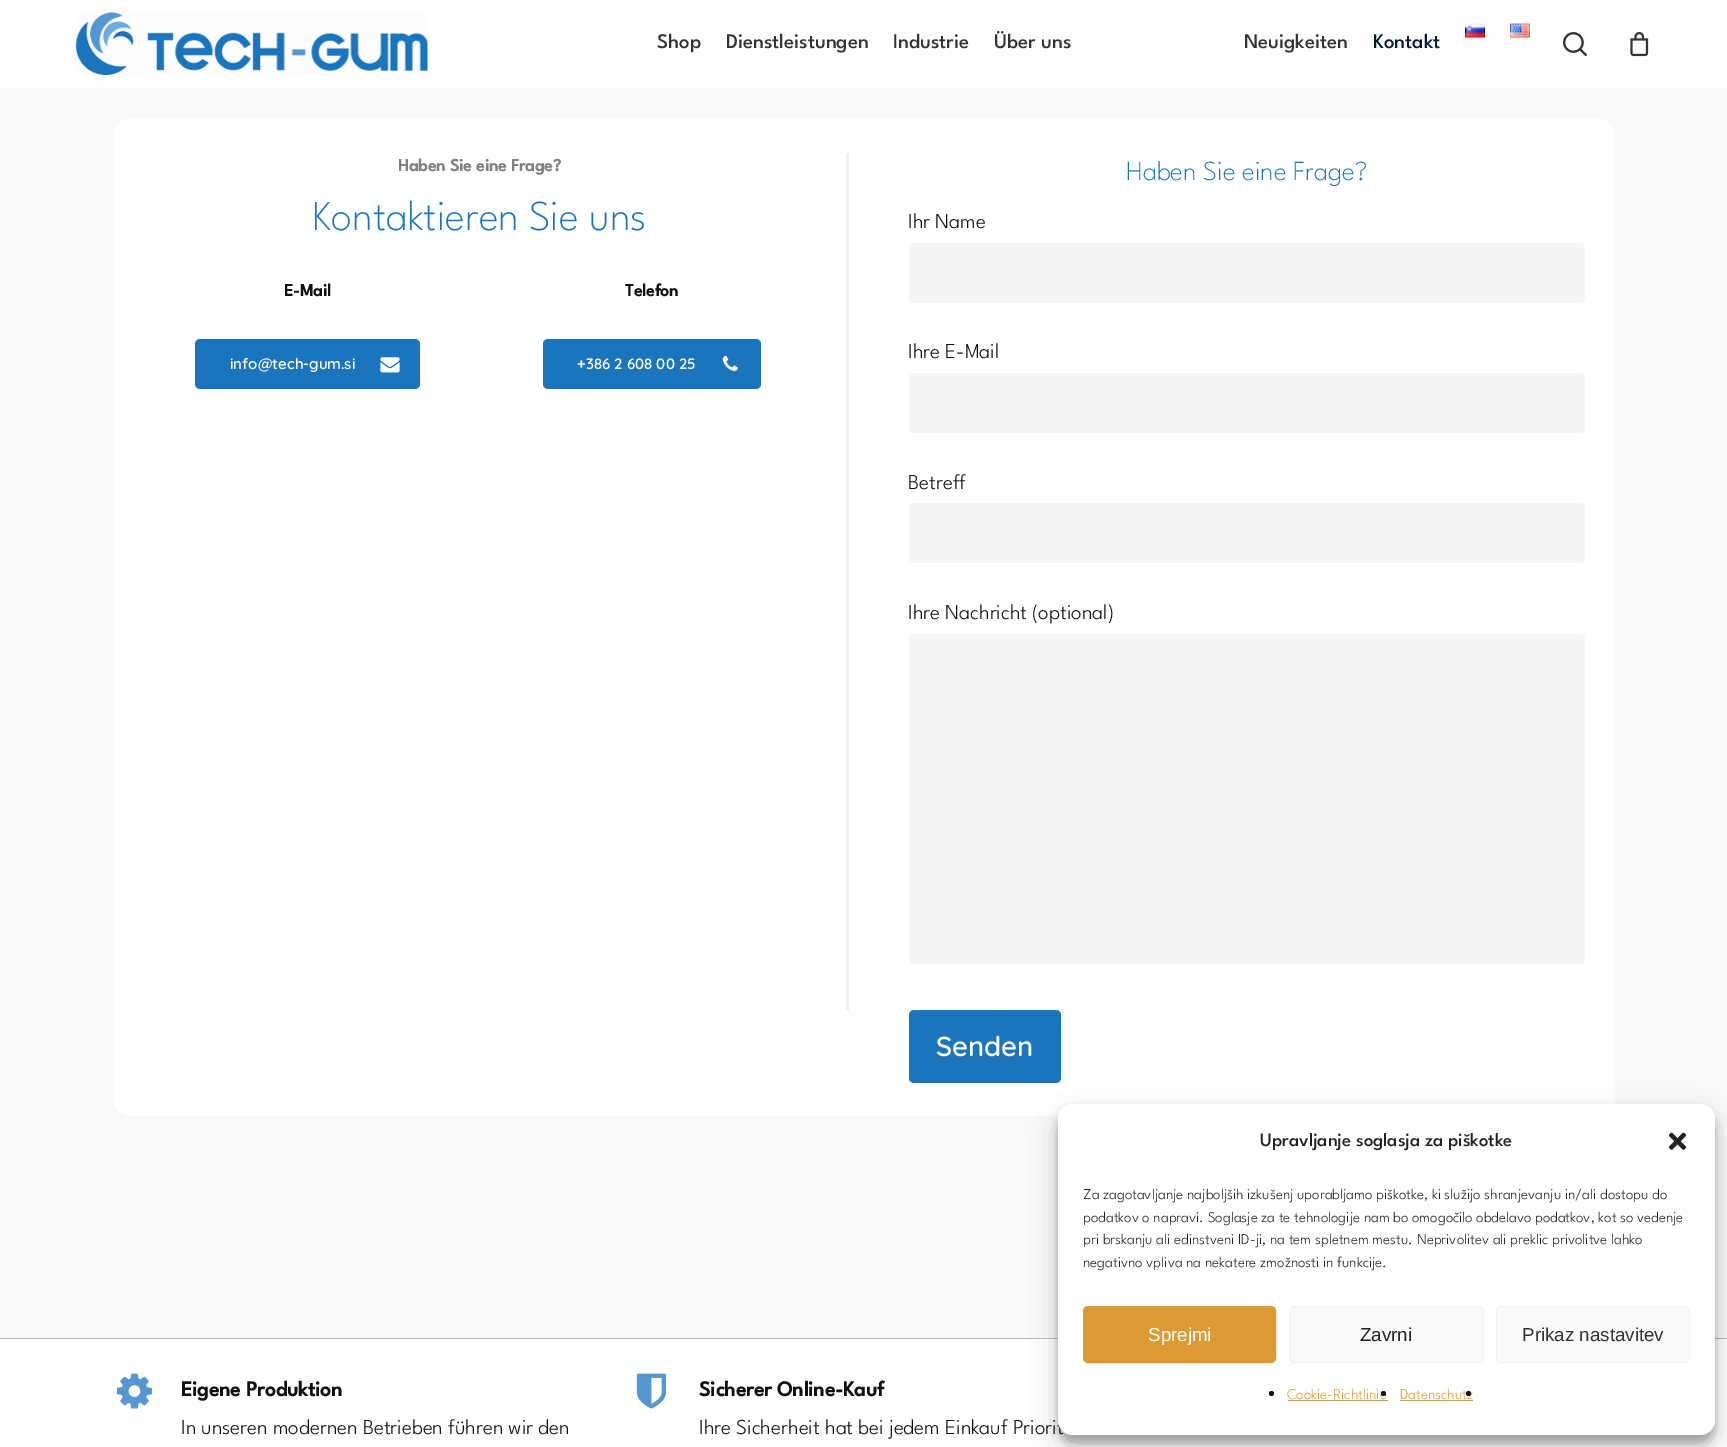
%!PS
<< /PageSize [1727 1447] /PageUsesTransparency true >> setpagedevice
/f/fill load def
/s/stroke load def
/q/gsave load def
/Q_/grestore load def
/C { dup -16 bitshift 255 div exch dup -8 bitshift 255 and 255 div exch 255 and 255 div setrgbcolor } def
/F { [ exch dup neg 0 0 3 -1 roll 0 0 ] selectfont } def
/T { moveto show } def
/R { rectfill } def
/A { dup .setfillconstantalpha .setstrokeconstantalpha } def
/O { newpath 0 360 arc closepath } def
/Q { 5 dict begin { /r /h /w /y /x } { exch def } forall
  x r add y moveto x w add y 2 copy h add r arct x w add y h add x 1 index r arct
  x y h add x y r arct x y 2 copy exch w add exch r arct closepath end } def
/S { 12 dict begin { /a /b /q /h /w /y /x } { exch def } forall gsave /was 0 def
  9 -2 -9 { dup b mul 4 div /e exch def 1 sub .425 mul 2.718 exch exp 1 add a .99 .min exch div /now exch def
    1 1 now sub 1 was sub div sub A /was now def
    w h .min e 2 mul add 0 gt { x e sub y e sub w e 2 mul add h e 2 mul add
      q e add b .6 mul add w h .min 2 div e add .min 0 .max Q fill } if } for grestore end } def
/I { 5 dict begin { /h /w /y /x /name } { exch def } forall
  gsave x y translate w h scale
  w h 8 [w 0 0 h 0 0] name (r) file false 3 colorimage grestore end } def
0 .pushpdf14devicefilter
0 1447 translate 1 -1 scale
4 setmiterlimit
16#FEFEFE C
0 0 1727 1447 R
(1.rgb) 75 12 353 63 I
/LeagueSpartan-Medium 20.75 F
16#333333 C
(Shop) 657 48 T
(Dienstleistungen) 726 48 T
(Industrie) 893 48 T
(Über uns) 994 48 T
(2.rgb) 1465 23 20 15 I
(3.rgb) 1510 23 20 15 I
(Neuigkeiten) 1244 48 T
16#061A3B C
(Kontakt) 1373 48 T
(4.rgb) 1563 32 24 25 I
(5.rgb) 1630 32 19 25 I
16#F9F9F9 C
0 88 1727 1250 R
16#FFFFFF C
113 118 1502 998 19 Q f
16#EFEFEF C
846 153 3 857 R
/LeagueSpartan-Bold 17.5 F
16#808080 C
(Haben Sie eine Frage?) 398 171 T
/LeagueSpartan-ExtraLight 42.5 F
16#1B75BC C
(Kontaktieren Sie uns) 312 230 T
/LeagueSpartan-Bold 17.5 F
16#111111 C
(E-Mail) 284 296 T
16#1B75BC C
195 339 225 50 5 Q f
/Quicksand-SemiBold 15 F
16#FFFFFF C
(info@tech-gum.si) 230 369 T
(6.rgb) 380 357 20 16 I
/LeagueSpartan-Bold 17.5 F
16#111111 C
(Telefon) 625 296 T
16#1B75BC C
543 339 218 50 5 Q f
/Quicksand-SemiBold 15 F
16#FFFFFF C
(+386 2 608 00 25) 577 369 T
(7.rgb) 722 355 16 16 I
/LeagueSpartan-ExtraLight 27.5 F
16#1B75BC C
(Haben Sie eine Frage?) 1126 180 T
/LeagueSpartan-Light 21.25 F
16#111111 C
(Ihr Name) 908 228 T
16#F5F5F5 C
909 243 676 60 5 Q f
16#111111 C
(Ihre E-Mail) 908 358 T
16#F5F5F5 C
909 373 676 60 5 Q f
16#111111 C
(Betreff) 908 489 T
16#F5F5F5 C
909 503 676 60 5 Q f
16#111111 C
(Ihre Nachricht \(optional\)) 908 619 T
16#F5F5F5 C
909 634 676 330 5 Q f
16#1B75BC C
909 1010 152 73 5 Q f
/Quicksand-SemiBold 27.5 F
16#FFFFFF C
(Senden) 936 1056 T
16#BABABA C
0 1338 1727 1 R
(8.rgb) 117 1373 35 36 I
/LeagueSpartan-Bold 21.25 F
16#111111 C
(Eigene Produktion) 181 1396 T
/LeagueSpartan-Light 21.25 F
(In unseren modernen Betrieben führen wir den) 181 1434 T
(9.rgb) 636 1373 30 36 I
/LeagueSpartan-Bold 21.25 F
(Sicherer Online-Kauf) 699 1396 T
/LeagueSpartan-Light 21.25 F
(Ihre Sicherheit hat bei jedem Einkauf Priorit) 699 1434 T
16#000000 C
1058 1111 657 332 15 4 .23 S
1058 1116 657 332 15 12.5 .19 S
16#FFFFFF C
1058 1104 657 331 15 Q f
/LeagueSpartan-Medium 18.75 F
16#222222 C
(Upravljanje soglasja za piškotke) 1260 1146 T
(10.rgb) 1668 1132 19 18 I
/LeagueSpartan-Light 15 F
(Za zagotavljanje najboljših izkušenj uporabljamo piškotke, ki služijo shranjevanju in/ali dostopu do) 1083 1199 T
(podatkov o napravi. Soglasje za te tehnologije nam bo omogočilo obdelavo podatkov, kot so vedenje) 1083 1222 T
(pri brskanju ali edinstveni ID-ji, na tem spletnem mestu. Neprivolitev ali preklic privolitve lahko) 1083 1244 T
(negativno vpliva na nekatere zmožnosti in funkcije.) 1083 1267 T
16#DD9933 C
1083.5 1306.5 192 56 4.5 Q q f Q_
s
/LiberationSans-Regular 18.75 F
16#FFFFFF C
(Sprejmi) 1148 1341 T
16#F9F9F9 C
1289.5 1306.5 194 56 4.5 Q q f Q_
16#F2F2F2 C
s
16#222222 C
(Zavrni) 1360 1341 T
16#F9F9F9 C
1496.5 1306.5 193 56 4.5 Q q f Q_
16#F2F2F2 C
s
16#333333 C
(Prikaz nastavitev) 1522 1341 T
16#111111 C
1271.5 1393.5 2.5 O f
/LeagueSpartan-Light 15 F
16#DD9933 C
(Cookie-Richtlinie) 1287 1399 T
1288 1400 100 1 R
16#111111 C
1383.5 1393.5 2.5 O f
16#DD9933 C
(Datenschutz) 1400 1399 T
1400 1400 73 1 R
16#111111 C
1468.5 1393.5 2.5 O f
.poppdf14devicefilter showpage
